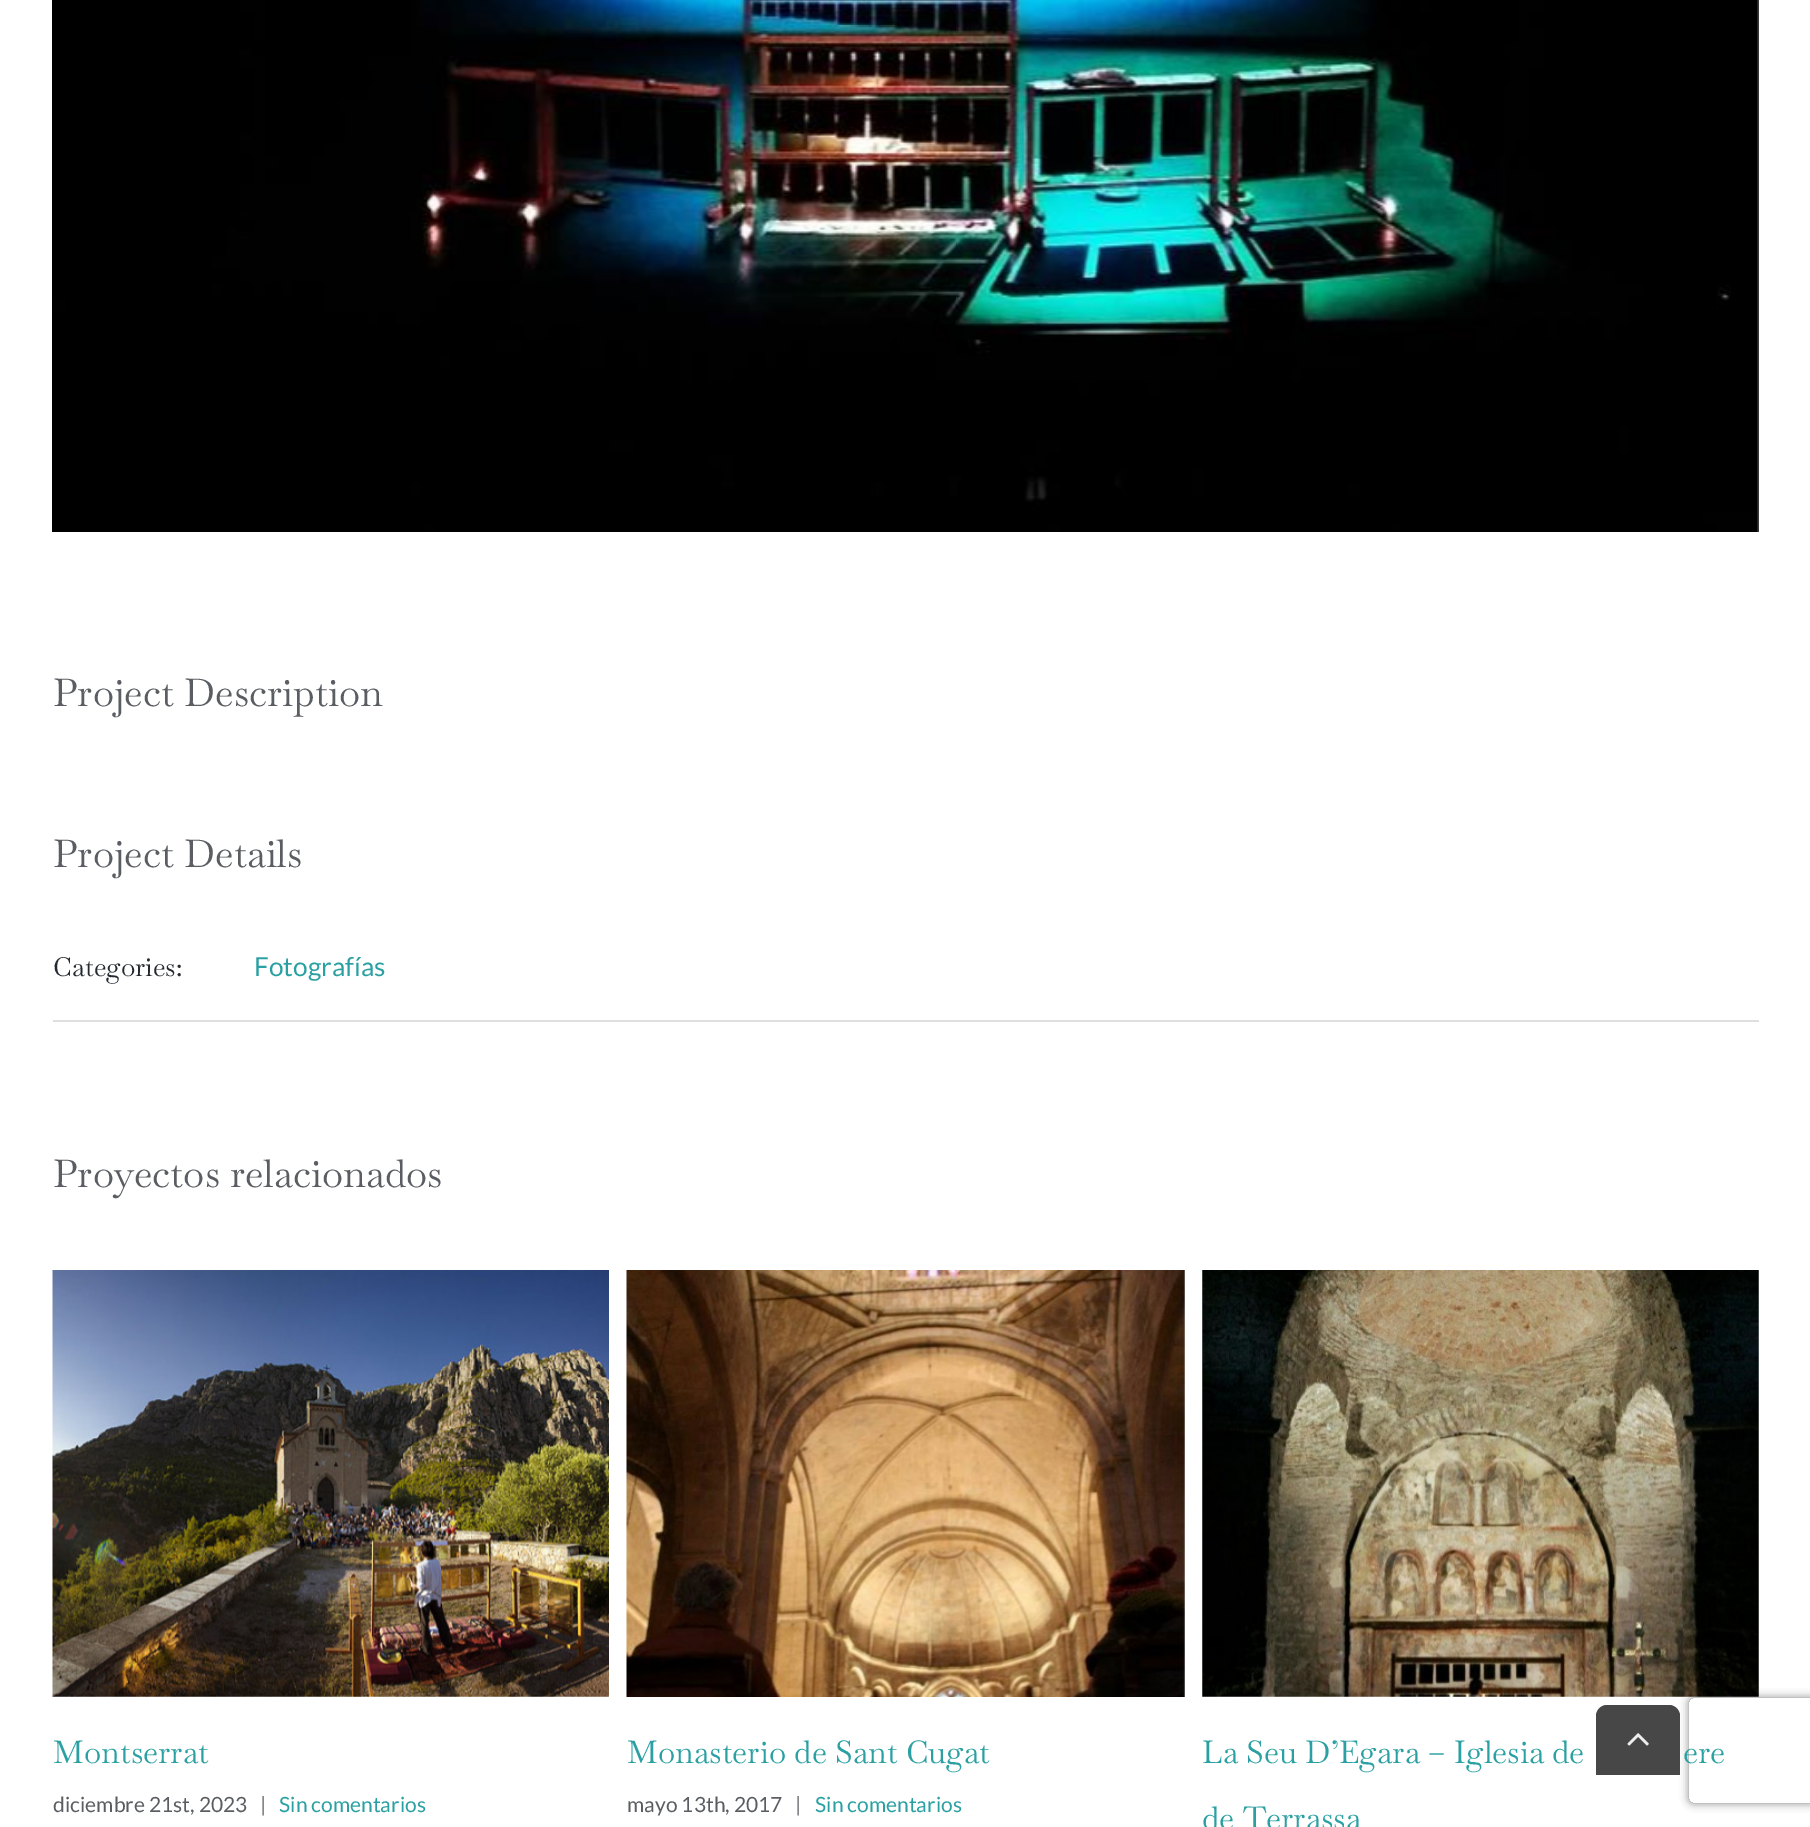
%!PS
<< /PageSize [1810 1827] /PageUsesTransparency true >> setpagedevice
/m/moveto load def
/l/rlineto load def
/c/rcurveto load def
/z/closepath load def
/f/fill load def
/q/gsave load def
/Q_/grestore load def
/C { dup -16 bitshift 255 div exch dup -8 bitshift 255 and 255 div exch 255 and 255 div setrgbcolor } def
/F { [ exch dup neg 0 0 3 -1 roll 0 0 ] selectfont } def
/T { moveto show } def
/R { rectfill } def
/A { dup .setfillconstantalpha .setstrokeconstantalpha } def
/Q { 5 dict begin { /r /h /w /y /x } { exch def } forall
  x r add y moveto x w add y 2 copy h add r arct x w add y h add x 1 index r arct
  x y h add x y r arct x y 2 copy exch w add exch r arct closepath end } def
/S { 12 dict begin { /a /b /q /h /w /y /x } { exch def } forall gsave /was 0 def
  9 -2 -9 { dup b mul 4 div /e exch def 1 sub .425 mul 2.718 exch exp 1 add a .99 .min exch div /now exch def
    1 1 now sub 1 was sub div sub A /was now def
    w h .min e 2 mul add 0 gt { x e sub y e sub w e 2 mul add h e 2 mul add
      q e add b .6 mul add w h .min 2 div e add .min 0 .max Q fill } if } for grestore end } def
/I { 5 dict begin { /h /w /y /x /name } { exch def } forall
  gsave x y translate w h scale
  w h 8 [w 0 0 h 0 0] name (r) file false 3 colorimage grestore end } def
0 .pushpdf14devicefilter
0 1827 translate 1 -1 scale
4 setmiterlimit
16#FFFFFF C
0 0 1810 1827 R
(1.rgb) 52 0 1707 532 I
/Baskervville-Regular 38.5 F
16#5A5D62 C
(Project Description) 53 706 T
(Project Details) 53 867 T
16#E0DEDE C
53 1020 1706 2 R
/Baskervville-Regular 26.25 F
16#242930 C
(Categories:) 53 976 T
/Lato-Regular 26.25 F
16#2BA0A3 C
(Fotografías) 254 976 T
/Baskervville-Regular 38.5 F
16#5A5D62 C
(Proyectos relacionados) 53 1187 T
(2.rgb) 52 1270 557 427 I
/Baskervville-Regular 31.5 F
16#2BA0A3 C
(Montserrat) 53 1763 T
/Lato-Regular 21 F
16#5A5D62 C
(diciembre 21st, 2023) 53 1812 T
(|) 260 1812 T
16#2BA0A3 C
(Sin comentarios) 279 1812 T
(3.rgb) 626 1270 559 427 I
/Baskervville-Regular 31.5 F
(Monasterio de Sant Cugat) 627 1763 T
/Lato-Regular 21 F
16#5A5D62 C
(mayo 13th, 2017) 627 1812 T
(|) 795 1812 T
16#2BA0A3 C
(Sin comentarios) 815 1812 T
q
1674 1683 m 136 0 l 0 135 l -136 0 l z 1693 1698 m 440 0 l 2 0 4 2 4 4 c 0 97 l 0 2 -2 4 -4 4 c -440 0 l -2 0 -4 -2 -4 -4 c 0 -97 l 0 -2 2 -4 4 -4 c z eoclip newpath
16#808080 C
1689 1698 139 105 4 4.5 1 S
Q_
(4.rgb) 1202 1270 557 427 I
/Baskervville-Regular 31.5 F
(La Seu D’Egara – Iglesia de) 1202 1763 T
(ere) 1683 1763 T
(de Terrassa) 1202 1829 T
0.9 A
16#333333 C
1607 1705 m 62 0 l 6 0 11 5 11 11 c 0 59 l -84 0 l 0 -59 l 0 -6 5 -11 11 -11 c z f
1 A
(5.rgb) 1627 1733 22 13 I
.poppdf14devicefilter showpage
